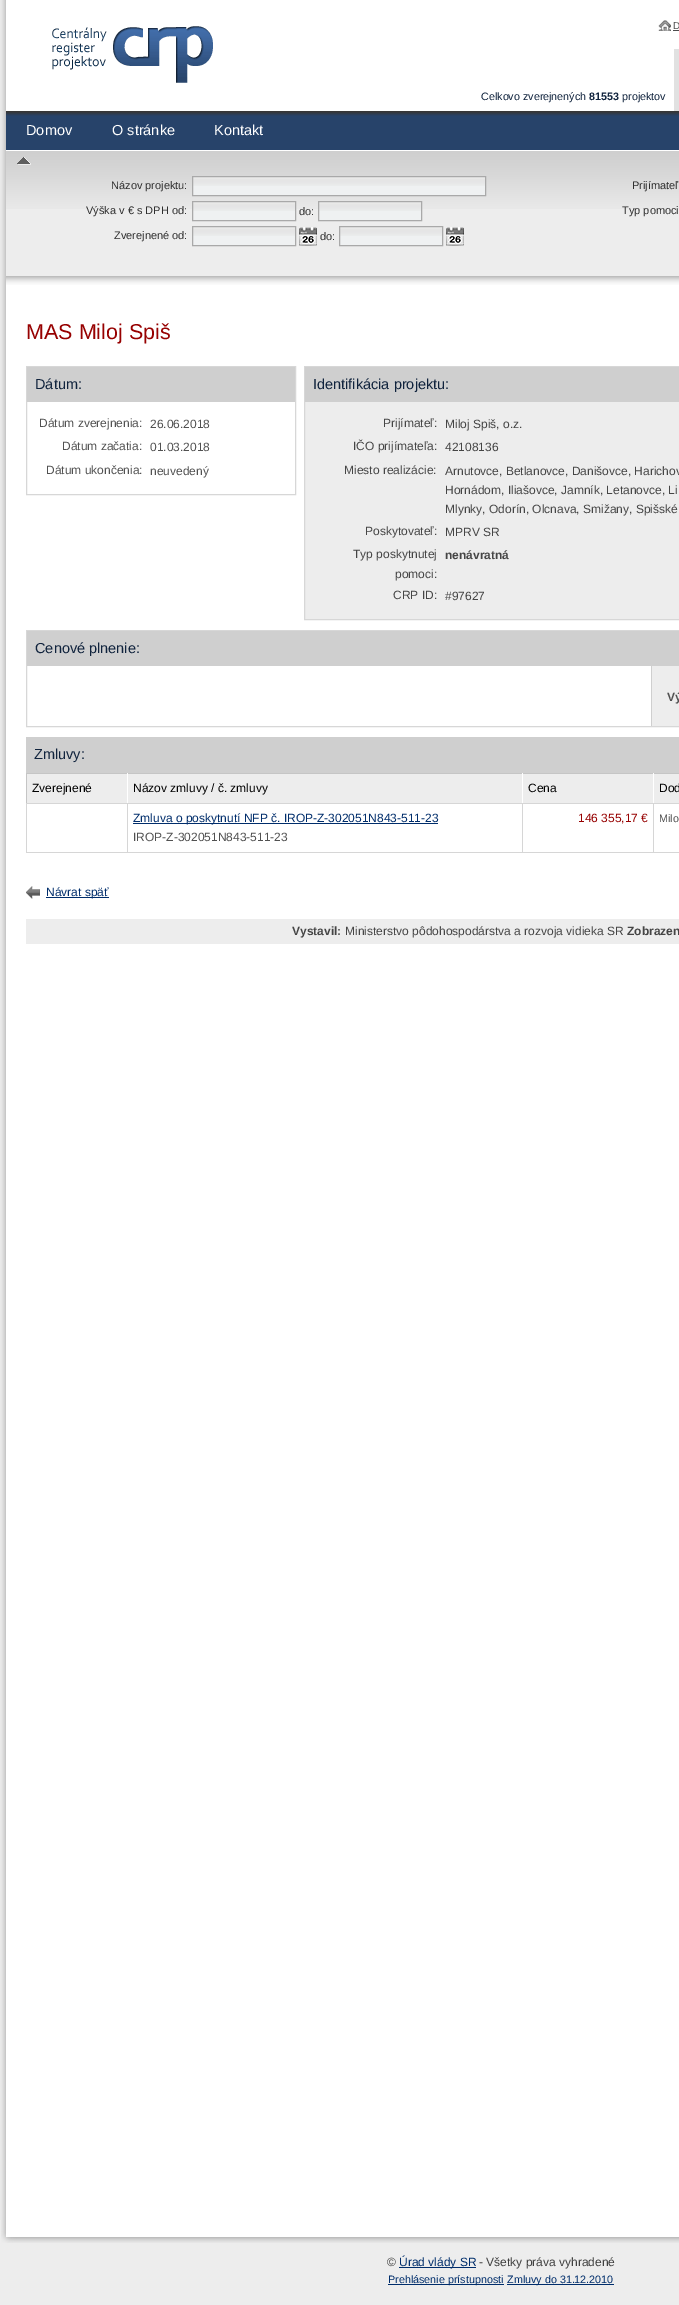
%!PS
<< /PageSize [679 2305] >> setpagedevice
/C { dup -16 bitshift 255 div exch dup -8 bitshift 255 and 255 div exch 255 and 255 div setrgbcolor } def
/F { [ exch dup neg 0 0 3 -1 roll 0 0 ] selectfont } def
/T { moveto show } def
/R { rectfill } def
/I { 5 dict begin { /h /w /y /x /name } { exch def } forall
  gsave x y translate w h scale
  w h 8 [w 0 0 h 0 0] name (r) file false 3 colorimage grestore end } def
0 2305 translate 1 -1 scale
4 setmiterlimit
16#FFFFFF C
0 0 679 2305 R
(1.rgb) 0 0 6 2220 I
(2.rgb) 52 26 161 57 I
(3.rgb) 658 20 13 11 I
/LiberationSans-Regular 10 F
16#515151 C
(D) 673 29 T
16#4C4C4D C
673 30 6 1 R
/LiberationSans-Regular 10.75 F
16#10233D C
(Celkovo zverejnených) 481 100 T
/LiberationSans-Bold 10.75 F
(81553) 589 100 T
/LiberationSans-Regular 10.75 F
(projektov) 622 100 T
16#E1E1E1 C
674 49 5 63 R
(4.rgb) 6 111 673 39 I
/LiberationSans-Regular 14.5 F
16#FFFFFF C
(Domov) 26 135 T
(O stránke) 112 135 T
(Kontakt) 214 135 T
(5.rgb) 6 276 673 9 I
(7.rgb) 6 151 673 58 I
(6.rgb) 17 157 14 8 I
16#EDEDED C
6 209 673 67 R
/LiberationSans-Regular 11 F
16#2F2F2F C
(Názov projektu:) 111 189 T
16#EFF1F2 C
193 186 292 9 R
(8.rgb) 193 177 292 9 I
16#A9A9A9 C
192.5 176.5 293 19 rectstroke
16#2F2F2F C
(Výška v € s DPH od:) 86 214 T
16#EFF1F2 C
193 211 102 9 R
(9.rgb) 193 202 102 9 I
16#A9A9A9 C
192.5 201.5 103 19 rectstroke
16#2F2F2F C
(do:) 299 215 T
16#EFF1F2 C
319 211 102 9 R
(9.rgb) 319 202 102 9 I
16#A9A9A9 C
318.5 201.5 103 19 rectstroke
16#2F2F2F C
(Zverejnené od:) 114 239 T
16#EFF1F2 C
193 236 102 9 R
(9.rgb) 193 227 102 9 I
16#A9A9A9 C
192.5 226.5 103 19 rectstroke
(10.rgb) 299 227 18 19 I
16#2F2F2F C
(do:) 320 240 T
16#EFF1F2 C
340 236 102 9 R
(9.rgb) 340 227 102 9 I
16#A9A9A9 C
339.5 226.5 103 19 rectstroke
(10.rgb) 446 227 18 19 I
16#2F2F2F C
(Prijímateľ) 632 189 T
(Typ pomoci) 622 214 T
/LiberationSans-Regular 21.5 F
16#970101 C
(MAS Miloj Spiš) 26 339 T
16#D7D7D7 C
26.5 366.5 269 128 rectstroke
16#CFCFCF C
27 367 268 35 R
/LiberationSans-Regular 14.5 F
16#10233D C
(Dátum:) 35 389 T
/LiberationSans-Regular 12 F
16#515151 C
(Dátum zverejnenia:) 39 427 T
(26.06.2018) 150 428 T
(Dátum začatia:) 62 450 T
(01.03.2018) 150 451 T
(Dátum ukončenia:) 46 474 T
(neuvedený) 150 475 T
16#EDEDED C
305 402 374 217 R
16#D7D7D7 C
304.5 366.5 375 253 rectstroke
16#CFCFCF C
305 367 374 35 R
/LiberationSans-Regular 14.5 F
16#10233D C
(Identifikácia projektu:) 313 389 T
/LiberationSans-Regular 12 F
16#454545 C
(Prijímateľ:) 383 427 T
(Miloj Spiš, o.z.) 445 428 T
(IČO prijímateľa:) 353 450 T
(42108136) 445 451 T
(Miesto realizácie:) 344 474 T
(Arnutovce, Betlanovce, Danišovce, Harichov) 445 475 T
(Hornádom, Iliašovce, Jamník, Letanovce, Li) 445 494 T
(Mlynky, Odorín, Olcnava, Smižany, Spišské) 445 513 T
(Poskytovateľ:) 365 535 T
(MPRV SR) 445 536 T
(Typ poskytnutej) 353 558 T
(pomoci:) 395 578 T
/LiberationSans-Bold 12 F
(nenávratná) 445 559 T
/LiberationSans-Regular 12 F
(CRP ID:) 393 599 T
(#97627) 445 600 T
16#D7D7D7 C
26.5 630.5 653 96 rectstroke
16#CFCFCF C
27 631 652 35 R
/LiberationSans-Regular 14.5 F
16#10233D C
(Cenové plnenie:) 35 653 T
16#EDEDED C
652 666 27 60 R
16#CFCFCF C
651 666 1 60 R
/LiberationSans-Bold 12 F
16#515151 C
(Vý) 667 701 T
16#CFCFCF C
26 737 653 36 R
/LiberationSans-Regular 14.5 F
16#10233D C
(Zmluvy:) 34 759 T
16#D6D6D6 C
26 852 653 1 R
16#EDEDED C
27 774 100 29 R
16#C5C5C5 C
26 773 653 1 R
26 773 1 30 R
/LiberationSans-Regular 12 F
16#010101 C
(Zverejnené) 32 792 T
16#EDEDED C
128 774 394 29 R
16#FFFFFF C
127 773 1 1 R
16#010101 C
(Názov zmluvy / č. zmluvy) 133 792 T
16#EDEDED C
523 774 130 29 R
16#FFFFFF C
522 773 1 1 R
16#010101 C
(Cena) 528 792 T
16#EDEDED C
654 774 25 29 R
16#FFFFFF C
653 773 1 1 R
16#010101 C
(Dod) 659 792 T
16#D6D6D6 C
26 803 653 1 R
26 803 1 49 R
127 803 1 49 R
16#002D6B C
133 823 305 1 R
(Zmluva o poskytnutí NFP č. IROP-Z-302051N843-511-23) 133 822 T
16#515151 C
(IROP-Z-302051N843-511-23) 133 841 T
16#D6D6D6 C
522 803 1 49 R
16#970101 C
(146 355,17 €) 578 822 T
16#D6D6D6 C
653 803 1 49 R
/LiberationSans-Regular 10.75 F
16#515151 C
(Milo) 659 822 T
(11.rgb) 26 886 14 13 I
16#002D6B C
46 897 63 1 R
/LiberationSans-Regular 12 F
(Návrat späť) 46 896 T
16#EDEDED C
26 919 653 25 R
/LiberationSans-Bold 12 F
16#454545 C
(Vystavil:) 292 935 T
/LiberationSans-Regular 12 F
(Ministerstvo pôdohospodárstva a rozvoja vidieka SR) 345 935 T
/LiberationSans-Bold 12 F
(Zobrazen) 627 935 T
16#EDEDED C
0 2220 679 85 R
(12.rgb) 1 2220 678 23 I
/LiberationSans-Regular 12 F
16#3F3F3F C
(©) 387 2266 T
16#002D6B C
399 2267 77 1 R
(Úrad vlády SR) 399 2266 T
16#3F3F3F C
(- Všetky práva vyhradené) 479 2266 T
16#002D6B C
388 2284 116 1 R
/LiberationSans-Regular 10.75 F
(Prehlásenie prístupnosti) 388 2283 T
507 2284 107 1 R
(Zmluvy do 31.12.2010) 507 2283 T
showpage
